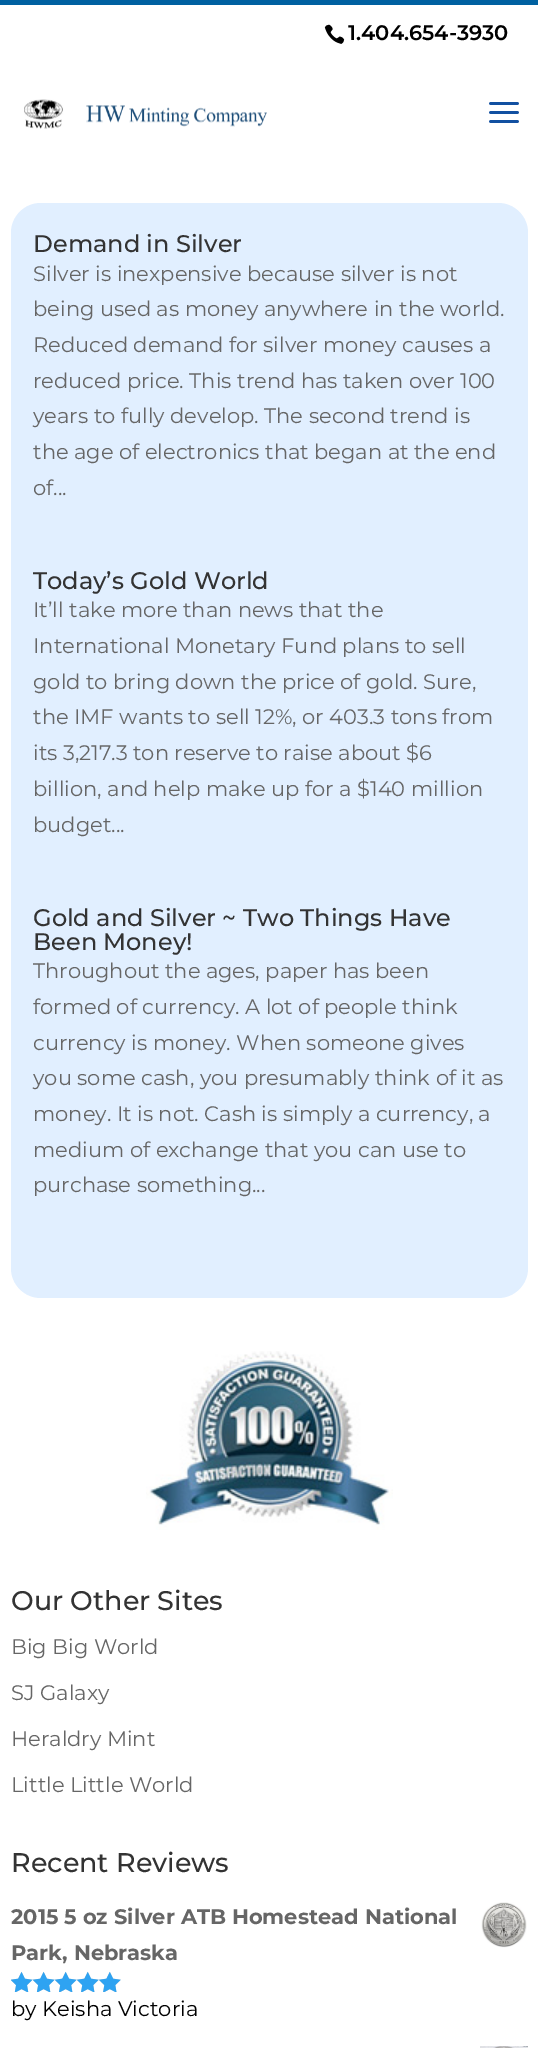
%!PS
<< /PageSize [538 2048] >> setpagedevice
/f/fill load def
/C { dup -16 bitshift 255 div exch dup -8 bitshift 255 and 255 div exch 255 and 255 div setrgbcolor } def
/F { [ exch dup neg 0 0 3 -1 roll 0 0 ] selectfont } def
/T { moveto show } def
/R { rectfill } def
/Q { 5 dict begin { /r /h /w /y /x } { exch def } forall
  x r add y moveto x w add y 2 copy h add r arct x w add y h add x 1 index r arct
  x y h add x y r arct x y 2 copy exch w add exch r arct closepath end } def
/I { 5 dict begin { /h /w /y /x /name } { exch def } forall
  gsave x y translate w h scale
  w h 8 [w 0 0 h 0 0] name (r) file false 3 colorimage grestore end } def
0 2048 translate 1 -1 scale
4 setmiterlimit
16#FFFFFF C
0 0 538 2048 R
16#0061A1 C
0 0 538 5 R
(1.rgb) 324 24 21 20 I
/Montserrat-SemiBold 21 F
16#000000 C
(1.404.654-3930) 348 40 T
(2.rgb) 24 99 243 30 I
(3.rgb) 489 102 30 21 I
16#E1EFFF C
11 203 517 1095 30 Q f
/Montserrat-Medium 24 F
16#333333 C
(Demand in Silver) 33 252 T
/Montserrat-Regular 21 F
16#666666 C
(Silver is inexpensive because silver is not) 33 281 T
(being used as money anywhere in the world.) 33 316 T
(Reduced demand for silver money causes a) 33 352 T
(reduced price. This trend has taken over 100) 33 388 T
(years to fully develop. The second trend is) 33 423 T
(the age of electronics that began at the end) 33 459 T
(of...) 33 495 T
/Montserrat-Medium 24 F
16#333333 C
(Today’s Gold World) 33 589 T
/Montserrat-Regular 21 F
16#666666 C
(It’ll take more than news that the) 33 617 T
(International Monetary Fund plans to sell) 33 653 T
(gold to bring down the price of gold. Sure,) 33 689 T
(the IMF wants to sell 12%, or 403.3 tons from) 33 724 T
(its 3,217.3 ton reserve to raise about $6) 33 760 T
(billion, and help make up for a $140 million) 33 796 T
(budget...) 33 832 T
/Montserrat-Medium 24 F
16#333333 C
(Gold and Silver ~ Two Things Have) 33 926 T
(Been Money!) 33 950 T
/Montserrat-Regular 21 F
16#666666 C
(Throughout the ages, paper has been) 33 978 T
(formed of currency. A lot of people think) 33 1014 T
(currency is money. When someone gives) 33 1050 T
(you some cash, you presumably think of it as) 33 1085 T
(money. It is not. Cash is simply a currency, a) 33 1121 T
(medium of exchange that you can use to) 33 1157 T
(purchase something...) 33 1192 T
(4.rgb) 146 1351 247 179 I
/Montserrat-Medium 27 F
16#333333 C
(Our Other Sites) 11 1610 T
/Montserrat-Regular 21 F
16#666666 C
(Big Big World) 11 1654 T
(SJ Galaxy) 11 1700 T
(Heraldry Mint) 11 1746 T
(Little Little World) 11 1792 T
/Montserrat-Medium 27 F
16#333333 C
(Recent Reviews) 11 1872 T
/Montserrat-Bold 21 F
16#666666 C
(2015 5 oz Silver ATB Homestead National) 11 1924 T
(5.rgb) 481 1902 46 46 I
(Park, Nebraska) 11 1960 T
(7.rgb) 11 1972 110 20 I
(6.rgb) 11 1971 110 21 I
/Montserrat-Regular 21 F
16#000000 C
(by Keisha Victoria) 11 2016 T
(8.rgb) 480 2046 48 2 I
showpage
